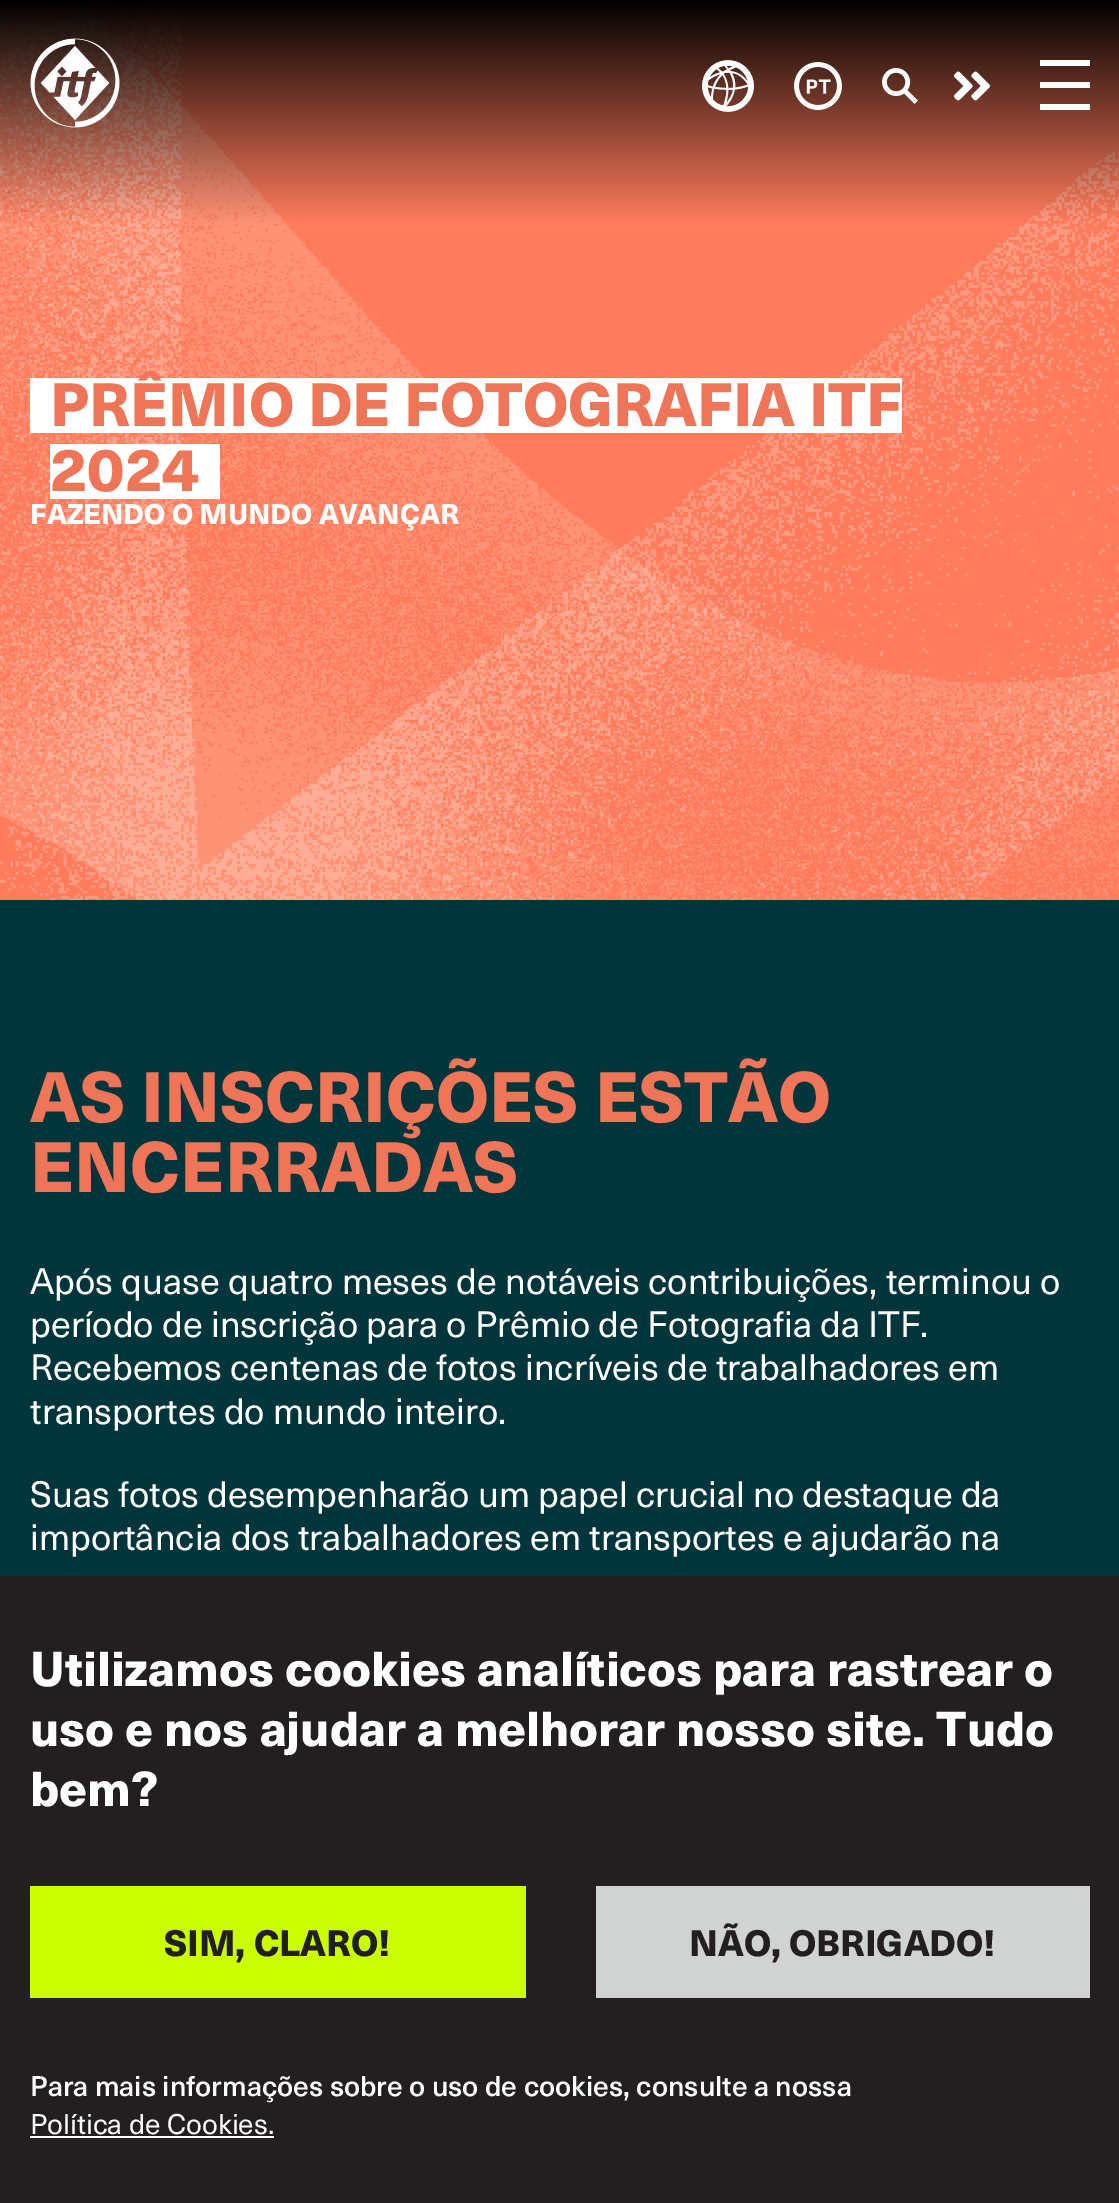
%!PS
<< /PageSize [1119 2203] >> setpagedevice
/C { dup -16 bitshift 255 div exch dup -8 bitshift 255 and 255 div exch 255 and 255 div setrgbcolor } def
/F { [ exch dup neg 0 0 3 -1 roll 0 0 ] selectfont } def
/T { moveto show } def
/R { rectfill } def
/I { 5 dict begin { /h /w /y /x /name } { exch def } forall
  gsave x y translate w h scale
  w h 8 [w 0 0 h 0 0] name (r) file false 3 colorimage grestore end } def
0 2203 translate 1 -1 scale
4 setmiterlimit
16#00353C C
0 0 1119 2203 R
(6.rgb) 0 0 1119 900 I
(1.rgb) 30 38 90 90 I
(2.rgb) 702 60 52 52 I
(3.rgb) 794 62 48 48 I
(4.rgb) 882 68 36 36 I
(5.rgb) 954 71 36 30 I
16#FFFFFF C
1040 60 50 6 R
1040 82 50 6 R
1040 104 50 6 R
/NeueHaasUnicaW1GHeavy-Black 60 F
16#EE7557 C
(PRÊMIO DE FOTOGRAFIA ITF) 50 426 T
(2024) 50 491 T
/NeueHaasUnicaW1GHeavy-Black 28 F
16#FFFFFF C
(FAZENDO O MUNDO AVANÇAR) 30 524 T
/NeueHaasUnicaW1GHeavy-Black 70 F
16#EE7557 C
(AS INSCRIÇÕES ESTÃO) 30 1122 T
(ENCERRADAS) 30 1192 T
/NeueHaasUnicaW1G-Regular 36 F
16#FFFFFF C
(Após quase quatro meses de notáveis contribuições, terminou o) 30 1294 T
(período de inscrição para o Prêmio de Fotografia da ITF.) 30 1337 T
(Recebemos centenas de fotos incríveis de trabalhadores em) 30 1380 T
(transportes do mundo inteiro.) 30 1424 T
(Suas fotos desempenharão um papel crucial no destaque da) 30 1507 T
(importância dos trabalhadores em transportes e ajudarão na) 30 1550 T
16#231F20 C
0 1576 1119 627 R
/NeueHaasUnicaW1GHeavy-Black 48 F
16#FFFFFF C
(Utilizamos cookies analíticos para rastrear o) 30 1686 T
(uso e nos ajudar a melhorar nosso site. Tudo) 30 1746 T
(bem?) 30 1806 T
16#CBFF00 C
30 1886 496 112 R
/NeueHaasUnicaW1GHeavy-Black 36 F
16#231F20 C
(SIM, CLARO!) 164 1956 T
16#D1D3D3 C
596 1886 494 112 R
16#231F20 C
(NÃO, OBRIGADO!) 689 1956 T
/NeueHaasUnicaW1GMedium-Medium 28 F
16#FFFFFF C
(Para mais informações sobre o uso de cookies, consulte a nossa) 30 2096 T
/NeueHaasUnicaW1G-Regular 28 F
(Política de Cookies.) 30 2134 T
30 2136 244 2 R
showpage
